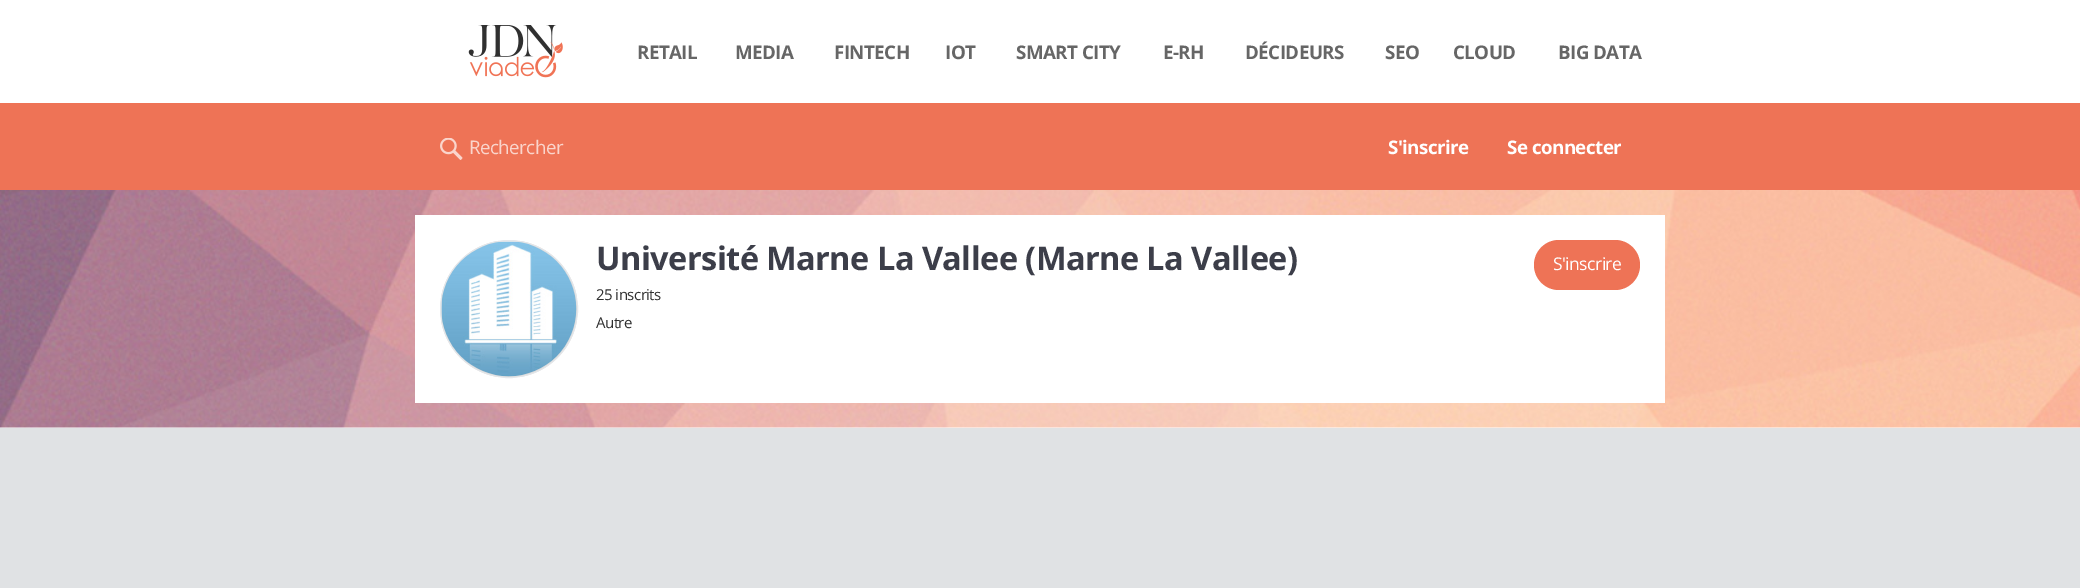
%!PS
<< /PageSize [2080 588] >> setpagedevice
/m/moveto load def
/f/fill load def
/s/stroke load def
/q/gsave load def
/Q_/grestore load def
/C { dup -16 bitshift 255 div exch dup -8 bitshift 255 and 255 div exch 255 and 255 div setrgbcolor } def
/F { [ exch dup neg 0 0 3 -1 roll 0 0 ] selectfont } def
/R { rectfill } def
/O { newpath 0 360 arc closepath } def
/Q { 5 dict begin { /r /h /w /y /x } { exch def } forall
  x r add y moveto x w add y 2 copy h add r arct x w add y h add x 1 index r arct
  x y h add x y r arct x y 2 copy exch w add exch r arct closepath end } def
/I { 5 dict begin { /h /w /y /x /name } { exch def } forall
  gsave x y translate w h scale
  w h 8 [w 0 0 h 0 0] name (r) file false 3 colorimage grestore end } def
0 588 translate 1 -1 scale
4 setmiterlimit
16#FFFFFF C
0 0 2080 588 R
(1.rgb) 468 25 95 53 I
/OpenSans-Bold 18.75 F
16#666666 C
637 59 m -.55 0 (RETAIL) ashow
735 59 m -.55 0 (MEDIA) ashow
834 59 m -.55 0 (FINTECH) ashow
945 59 m -.55 0 (IOT) ashow
1016 59 m -.55 0 (SMART CITY) ashow
1163 59 m -.55 0 (E-RH) ashow
1245 59 m -.55 0 (DÉCIDEURS) ashow
1385 59 m -.55 0 (SEO) ashow
1453 59 m -.55 0 (CLOUD) ashow
1558 59 m -.55 0 (BIG DATA) ashow
16#EE7356 C
0 103 2080 87 R
(2.rgb) 440 138 23 22 I
/OpenSans-Regular 18.75 F
16#FAD5CC C
469 154 m -.55 0 (Rechercher) ashow
/OpenSans-Bold 18.75 F
16#FFFFFF C
1388 154 m -.55 0 (S'inscrire) ashow
1507 154 m -.55 0 (Se connecter) ashow
(3.rgb) 0 190 2080 238 I
415 215 1250 188 R
16#DDDDDD C
509 309 68.5 O q f Q_
16#E5E7EA C
s
(4.rgb) 441 241 136 136 I
/OpenSans-Bold 32.5 F
16#3C3E49 C
596 270 m -.55 0 (Université Marne La Vallee \(Marne La Vallee\)) ashow
16#EE7356 C
1534 240 106 50 25 Q f
/OpenSans-Regular 17.5 F
16#FFFFFF C
1553 270 m -.55 0 (S'inscrire) ashow
/OpenSans-Regular 15 F
16#303030 C
596 300 m -.55 0 (25 inscrits) ashow
596 328 m -.55 0 (Autre) ashow
16#E0E2E4 C
0 428 2080 160 R
showpage
